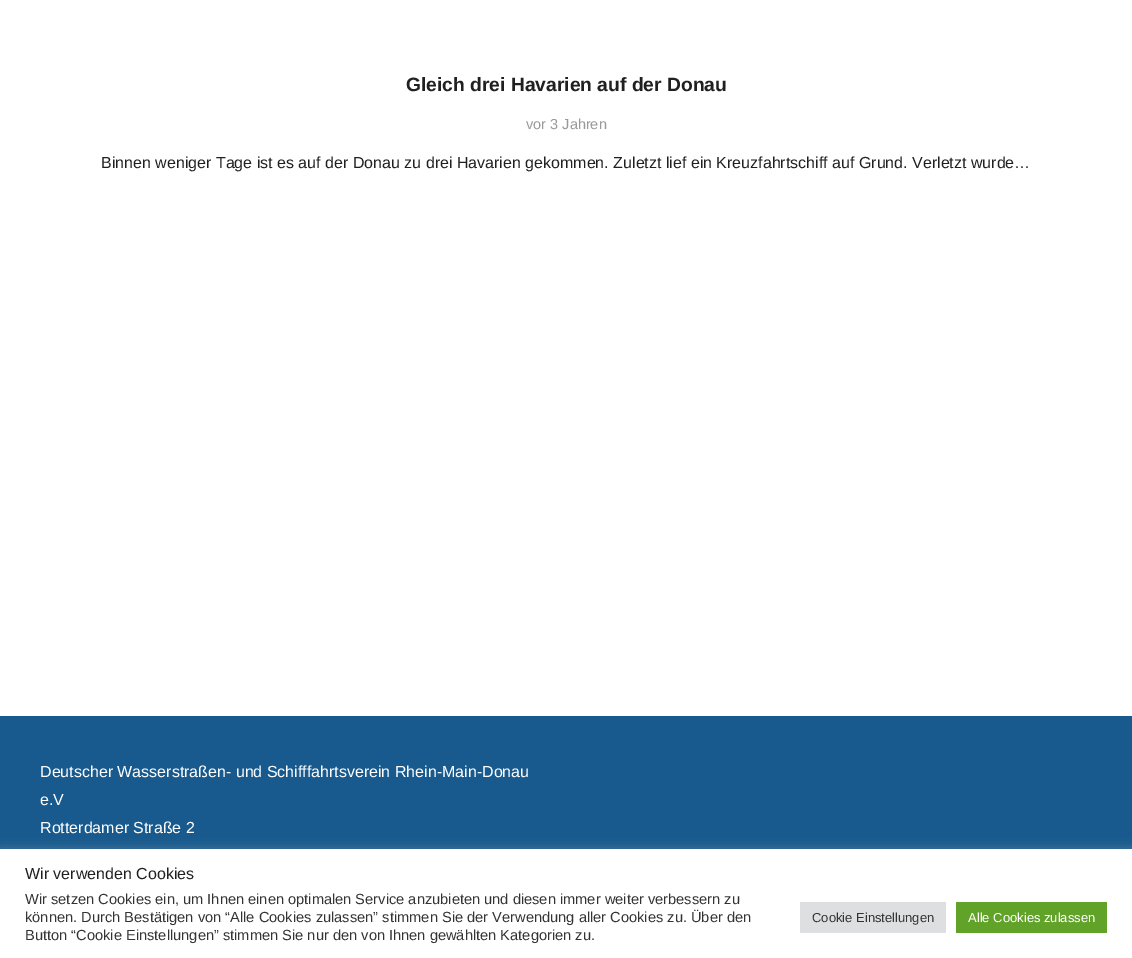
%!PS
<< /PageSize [1132 958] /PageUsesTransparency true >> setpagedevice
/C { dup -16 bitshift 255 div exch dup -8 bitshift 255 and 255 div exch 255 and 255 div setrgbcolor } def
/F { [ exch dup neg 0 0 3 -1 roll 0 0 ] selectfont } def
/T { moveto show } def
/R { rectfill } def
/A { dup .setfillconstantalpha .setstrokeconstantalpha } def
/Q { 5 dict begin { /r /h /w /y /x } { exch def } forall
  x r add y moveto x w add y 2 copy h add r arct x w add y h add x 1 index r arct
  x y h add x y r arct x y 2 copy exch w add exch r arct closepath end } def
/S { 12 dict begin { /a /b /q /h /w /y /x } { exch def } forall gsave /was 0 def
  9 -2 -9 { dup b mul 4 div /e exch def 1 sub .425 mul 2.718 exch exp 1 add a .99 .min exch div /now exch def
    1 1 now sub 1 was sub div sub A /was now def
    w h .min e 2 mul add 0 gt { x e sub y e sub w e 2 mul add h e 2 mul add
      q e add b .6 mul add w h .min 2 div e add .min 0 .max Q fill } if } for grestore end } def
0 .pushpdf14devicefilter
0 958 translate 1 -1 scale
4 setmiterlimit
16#FFFFFF C
0 0 1132 958 R
/LiberationSans-Bold 19.25 F
16#202020 C
(Gleich drei Havarien auf der Donau) 406 91 T
/LiberationSans-Regular 14.5 F
16#999999 C
(vor 3 Jahren) 526 129 T
/LiberationSans-Regular 16 F
16#202020 C
(Binnen weniger Tage ist es auf der Donau zu drei Havarien gekommen. Zuletzt lief ein Kreuzfahrtschiff auf Grund. Verletzt wurde…) 101 168 T
16#185A8E C
0 716 1132 133 R
16#FFFFFF C
(Deutscher Wasserstraßen- und Schifffahrtsverein Rhein-Main-Donau) 40 777 T
(e.V) 40 805 T
(Rotterdamer Straße 2) 40 833 T
16#ACABAB C
0 848 1132 109 0 5 .3 S
16#FFFFFF C
0 849 1132 109 R
16#202020 C
(Wir verwenden Cookies) 25 879 T
/LiberationSans-Regular 14.65 F
16#333333 C
(Wir setzen Cookies ein, um Ihnen einen optimalen Service anzubieten und diesen immer weiter verbessern zu) 25 904 T
(können. Durch Bestätigen von “Alle Cookies zulassen” stimmen Sie der Verwendung aller Cookies zu. Über den) 25 922 T
(Button “Cookie Einstellungen” stimmen Sie nur den von Ihnen gewählten Kategorien zu.) 25 940 T
16#DEDFE0 C
800 902 146 31 R
/LiberationSans-Regular 13 F
16#333333 C
(Cookie Einstellungen) 812 922 T
16#61A229 C
956 902 151 31 R
16#FFFFFF C
(Alle Cookies zulassen) 968 922 T
.poppdf14devicefilter showpage
